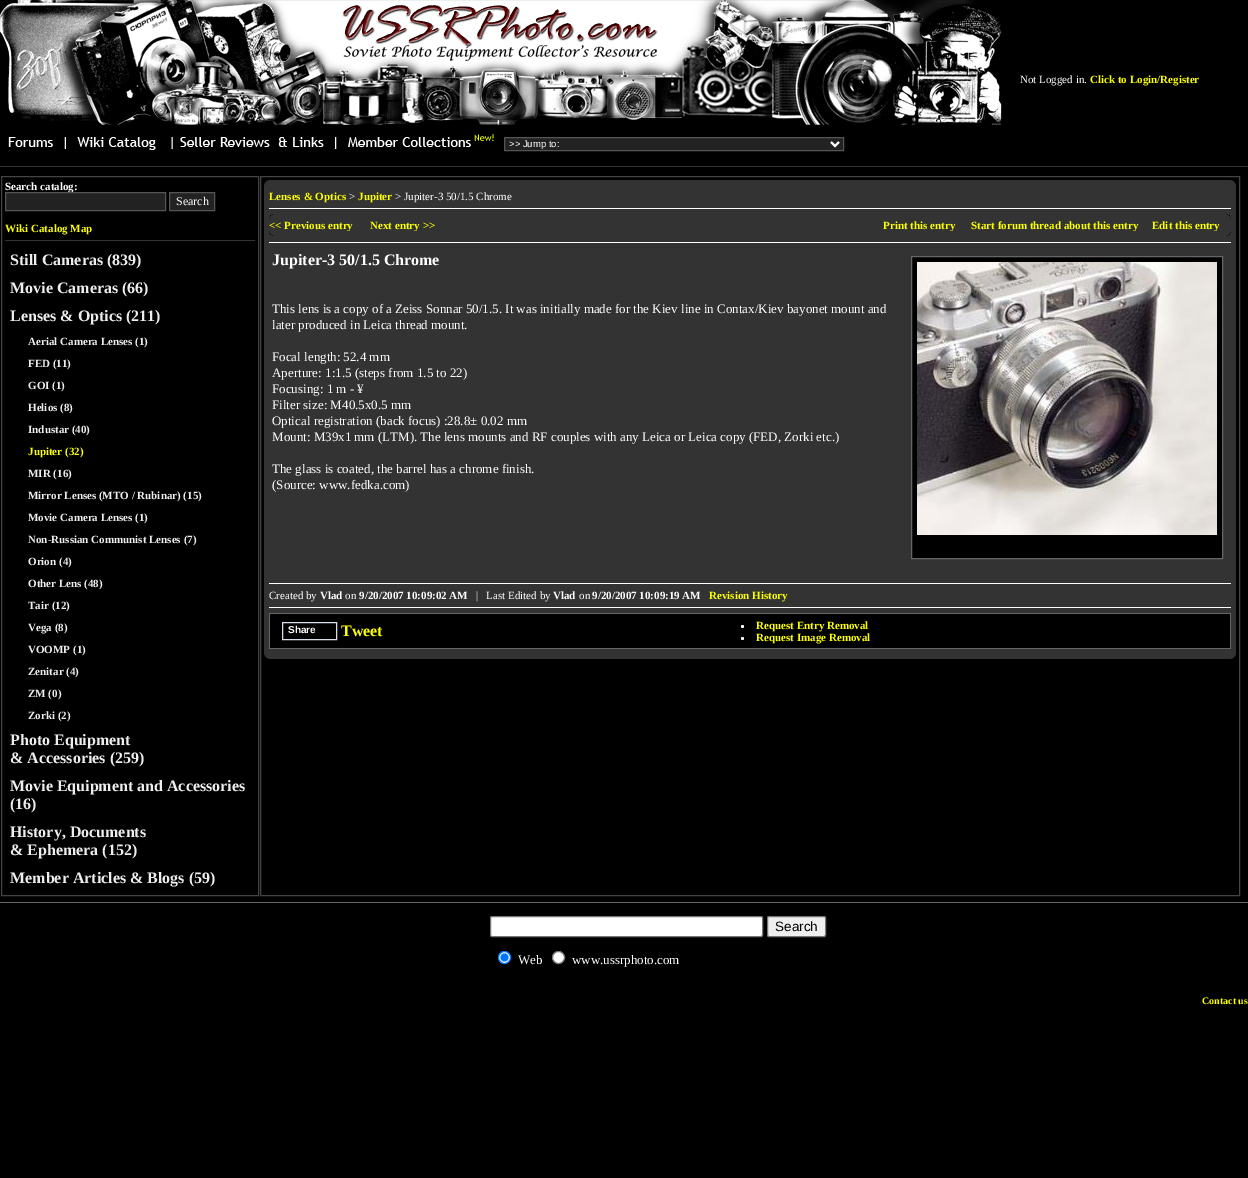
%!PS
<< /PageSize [1248 1178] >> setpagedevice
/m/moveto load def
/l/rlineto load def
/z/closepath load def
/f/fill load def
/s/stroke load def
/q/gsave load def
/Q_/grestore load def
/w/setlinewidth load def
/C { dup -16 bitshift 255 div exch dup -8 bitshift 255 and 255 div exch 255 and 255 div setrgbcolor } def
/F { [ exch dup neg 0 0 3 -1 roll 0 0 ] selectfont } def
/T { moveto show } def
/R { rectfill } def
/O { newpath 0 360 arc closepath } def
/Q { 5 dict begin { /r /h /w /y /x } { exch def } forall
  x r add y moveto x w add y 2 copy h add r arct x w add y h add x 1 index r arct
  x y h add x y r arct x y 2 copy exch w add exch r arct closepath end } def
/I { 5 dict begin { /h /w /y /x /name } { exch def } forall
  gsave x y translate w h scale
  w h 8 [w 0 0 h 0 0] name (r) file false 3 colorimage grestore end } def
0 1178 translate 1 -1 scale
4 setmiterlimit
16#000000 C
0 0 1248 1178 R
/LiberationSerif-Regular 11 F
16#FFFFFF C
(Not Logged in.) 1020 83 T
/LiberationSerif-Bold 11 F
16#FCFF00 C
(Click to Login/Register) 1090 83 T
(1.rgb) 0 0 1002 125 I
(2.rgb) 8 137 57 12 I
(3.rgb) 65 137 108 13 I
(4.rgb) 180 137 144 10 I
(5.rgb) 335 134 159 15 I
16#222222 C
504.5 137.5 m 339 0 l 0 13 l -339 0 l z q f Q_
16#555555 C
s
16#FFFFFF C
2 w
831 142 m 4 4 l 4 -4 l s
/LiberationSans-Regular 9.5 F
(>> Jump to:) 509 147 T
16#333333 C
0 166 1248 1 R
16#444444 C
1 w
1.5 176.5 257 719 rectstroke
/LiberationSerif-Bold 11 F
16#FFFFFF C
(Search catalog:) 5 190 T
16#222222 C
5.5 192.5 m 160 0 l 0 18 l -160 0 l z q f Q_
16#555555 C
s
16#222222 C
169.5 192.5 m 45 0 l 0 18 l -45 0 l z q f Q_
16#555555 C
s
/LiberationSerif-Regular 12 F
16#FFFFFF C
(Search) 176 205 T
/LiberationSerif-Bold 11 F
16#FCFF00 C
(Wiki Catalog Map) 5 232 T
16#333333 C
5 240 250 1 R
/LiberationSerif-Bold 16 F
16#EEEEEE C
(Still Cameras \(839\)) 10 265 T
(Movie Cameras \(66\)) 10 293 T
(Lenses & Optics \(211\)) 10 321 T
/LiberationSerif-Bold 11 F
(Aerial Camera Lenses \(1\)) 28 345 T
(FED \(11\)) 28 367 T
(GOI \(1\)) 28 389 T
(Helios \(8\)) 28 411 T
(Industar \(40\)) 28 433 T
16#FCFF00 C
(Jupiter \(32\)) 28 455 T
16#EEEEEE C
(MIR \(16\)) 28 477 T
(Mirror Lenses \(MTO / Rubinar\) \(15\)) 28 499 T
(Movie Camera Lenses \(1\)) 28 521 T
(Non-Russian Communist Lenses \(7\)) 28 543 T
(Orion \(4\)) 28 565 T
(Other Lens \(48\)) 28 587 T
(Tair \(12\)) 28 609 T
(Vega \(8\)) 28 631 T
(VOOMP \(1\)) 28 653 T
(Zenitar \(4\)) 28 675 T
(ZM \(0\)) 28 697 T
(Zorki \(2\)) 28 719 T
/LiberationSerif-Bold 16 F
(Photo Equipment) 10 745 T
(& Accessories \(259\)) 10 763 T
(Movie Equipment and Accessories) 10 791 T
(\(16\)) 10 809 T
(History, Documents) 10 837 T
(& Ephemera \(152\)) 10 855 T
(Member Articles & Blogs \(59\)) 10 883 T
16#444444 C
260.5 176.5 979 719 rectstroke
16#262626 C
267 180 966 1 R
16#151515 C
1232 180 1 1 R
267 180 1 1 R
16#333333 C
269 180 962 1 R
16#292929 C
265 181 970 1 R
16#050505 C
1234 181 1 1 R
265 181 1 1 R
16#333333 C
267 181 966 1 R
265 182 970 1 R
16#292929 C
1234 182 1 1 R
265 182 1 1 R
16#333333 C
264 183 972 2 R
16#151515 C
1235 183 1 1 R
264 183 1 1 R
16#262626 C
1235 184 1 1 R
264 184 1 1 R
16#333333 C
264 185 972 471 R
/LiberationSerif-Bold 11 F
16#FCFF00 C
(Lenses & Optics) 269 200 T
/LiberationSerif-Regular 11 F
16#FFFFFF C
(>) 349 200 T
/LiberationSerif-Bold 11 F
16#FCFF00 C
(Jupiter) 358 200 T
/LiberationSerif-Regular 11 F
16#FFFFFF C
(> Jupiter-3 50/1.5 Chrome) 395 200 T
269 208 962 1 R
16#262626 C
272 214 956 1 R
16#151515 C
1227 214 1 1 R
272 214 1 1 R
16#333333 C
274 214 952 1 R
16#292929 C
270 215 960 1 R
16#050505 C
1229 215 1 1 R
270 215 1 1 R
16#333333 C
272 215 956 1 R
16#292929 C
1229 216 1 1 R
270 216 1 1 R
16#151515 C
1230 217 1 1 R
269 217 1 1 R
16#262626 C
1230 218 1 1 R
269 218 1 1 R
/LiberationSerif-Bold 11 F
16#FCFF00 C
(<< Previous entry) 269 229 T
(Next entry >>) 370 229 T
(Print this entry) 883 229 T
(Start forum thread about this entry) 971 229 T
(Edit this entry) 1152 229 T
16#333333 C
347 231 870 1 R
16#262626 C
1230 231 1 1 R
269 231 1 1 R
16#151515 C
1230 232 1 1 R
269 232 1 1 R
16#292929 C
1229 233 1 1 R
270 233 1 1 R
270 234 960 1 R
16#050505 C
1229 234 1 1 R
270 234 1 1 R
16#333333 C
272 234 956 1 R
16#262626 C
272 235 956 1 R
16#151515 C
1227 235 1 1 R
272 235 1 1 R
16#333333 C
274 235 952 1 R
16#FFFFFF C
269 242 962 1 R
/LiberationSerif-Bold 16 F
(Jupiter-3 50/1.5 Chrome) 272 265 T
/LiberationSerif-Regular 13 F
(This lens is a copy of a Zeiss Sonnar 50/1.5. It was initially made for the Kiev line in Contax/Kiev bayonet mount and) 272 313 T
(later produced in Leica thread mount.) 272 329 T
(Focal length: 52.4 mm) 272 361 T
(Aperture: 1:1.5 \(steps from 1.5 to 22\)) 272 377 T
(Focusing: 1 m - ¥) 272 393 T
(Filter size: M40.5x0.5 mm) 272 409 T
(Optical registration \(back focus\) :28.8± 0.02 mm) 272 425 T
(Mount: M39x1 mm \(LTM\). The lens mounts and RF couples with any Leica or Leica copy \(FED, Zorki etc.\)) 272 441 T
(The glass is coated, the barrel has a chrome finish.) 272 473 T
(\(Source: www.fedka.com\)) 272 489 T
16#000000 C
911.5 256.5 m 311 0 l 0 302 l -311 0 l z q f Q_
16#666666 C
s
(6.rgb) 917 262 300 273 I
16#FFFFFF C
269 583 962 1 R
/LiberationSerif-Regular 11 F
(Created by) 269 599 T
/LiberationSerif-Bold 11 F
(Vlad) 320 599 T
/LiberationSerif-Regular 11 F
(on) 345 599 T
/LiberationSerif-Bold 11 F
(9/20/2007 10:09:02 AM) 359 599 T
/LiberationSerif-Regular 11 F
(|   Last Edited by) 476 599 T
/LiberationSerif-Bold 11 F
(Vlad) 553 599 T
/LiberationSerif-Regular 11 F
(on) 579 599 T
/LiberationSerif-Bold 11 F
(9/20/2007 10:09:19 AM) 592 599 T
16#FCFF00 C
(Revision History) 709 599 T
16#FFFFFF C
269 607 962 1 R
16#666666 C
269 613 962 36 R
16#000000 C
270 614 960 34 R
16#D8DFEA C
282.5 622.5 54 17 rectstroke
/LiberationSans-Bold 10 F
16#FFFFFF C
(Share) 288 633 T
/LiberationSerif-Bold 16 F
16#FCFF00 C
(Tweet) 341 636 T
16#FFFFFF C
742.5 626.5 1.5 O f
/LiberationSerif-Bold 11 F
16#FCFF00 C
(Request Entry Removal) 756 629 T
16#FFFFFF C
742.5 638.5 1.5 O f
16#FCFF00 C
(Request Image Removal) 756 641 T
16#262626 C
1235 654 1 1 R
264 654 1 1 R
16#151515 C
1235 655 1 1 R
264 655 1 1 R
16#333333 C
265 656 970 1 R
16#292929 C
1234 656 1 1 R
265 656 1 1 R
265 657 970 1 R
16#050505 C
1234 657 1 1 R
265 657 1 1 R
16#333333 C
267 657 966 1 R
16#262626 C
267 658 966 1 R
16#151515 C
1232 658 1 1 R
267 658 1 1 R
16#333333 C
269 658 962 1 R
16#666666 C
0 902 1248 1 R
16#FFFFFF C
490.5 916.5 272 20 1.5 Q q f Q_
16#767676 C
s
16#EFEFEF C
767.5 916.5 58 20 1.5 Q q f Q_
16#767676 C
s
/LiberationSans-Regular 13.5 F
16#000000 C
(Search) 775 931 T
16#FFFFFF C
504.5 957.5 6 O q f Q_
16#0075FF C
s
504.5 957.5 4 O f
/LiberationSerif-Regular 13 F
16#FFFFFF C
(Web) 518 964 T
558.5 957.5 6 O q f Q_
16#767676 C
s
16#FFFFFF C
(www.ussrphoto.com) 572 964 T
/LiberationSerif-Bold 10 F
16#FCFF00 C
(Contact us) 1202 1004 T
showpage
